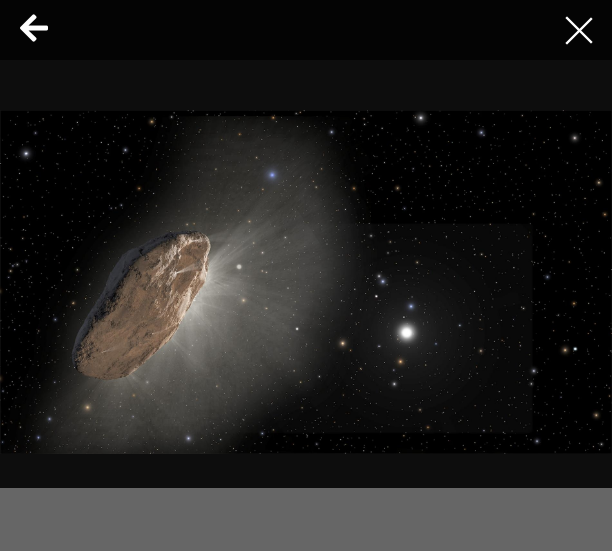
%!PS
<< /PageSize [612 551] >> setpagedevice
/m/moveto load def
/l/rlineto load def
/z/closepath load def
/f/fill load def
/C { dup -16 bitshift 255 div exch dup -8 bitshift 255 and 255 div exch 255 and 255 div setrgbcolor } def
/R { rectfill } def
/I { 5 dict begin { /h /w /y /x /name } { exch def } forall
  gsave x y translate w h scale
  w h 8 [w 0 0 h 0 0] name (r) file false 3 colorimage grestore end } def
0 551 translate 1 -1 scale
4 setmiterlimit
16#666666 C
0 0 612 551 R
16#040404 C
0 0 612 60 R
(1.rgb) 20 14 28 28 I
16#FFFFFF C
567 16.5 m 25.5 25.5 l -1.5 1.5 l -25.5 -25.5 l z f
565.5 43 m 25.5 -25.5 l 1.5 1.5 l -25.5 25.5 l z f
16#0D0D0D C
0 60 612 428 R
(2.rgb) 0 110 612 344 I
showpage
